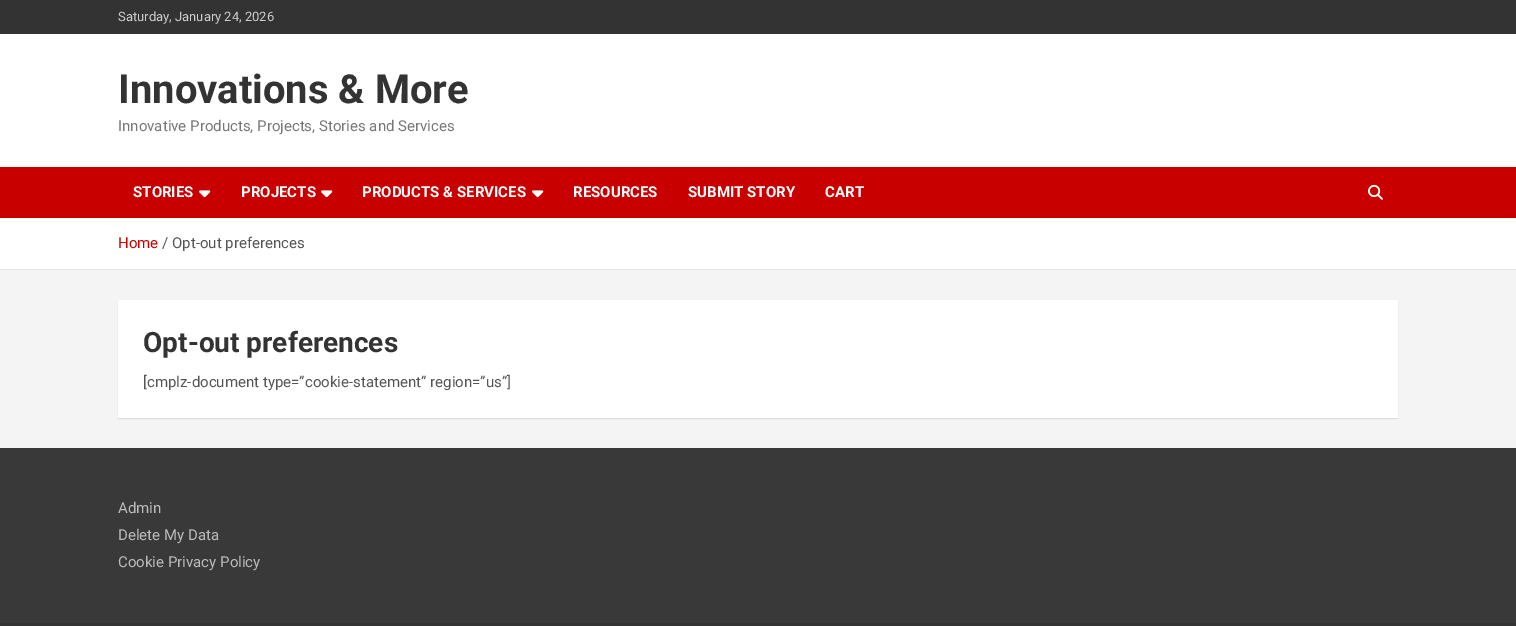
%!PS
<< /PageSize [1516 626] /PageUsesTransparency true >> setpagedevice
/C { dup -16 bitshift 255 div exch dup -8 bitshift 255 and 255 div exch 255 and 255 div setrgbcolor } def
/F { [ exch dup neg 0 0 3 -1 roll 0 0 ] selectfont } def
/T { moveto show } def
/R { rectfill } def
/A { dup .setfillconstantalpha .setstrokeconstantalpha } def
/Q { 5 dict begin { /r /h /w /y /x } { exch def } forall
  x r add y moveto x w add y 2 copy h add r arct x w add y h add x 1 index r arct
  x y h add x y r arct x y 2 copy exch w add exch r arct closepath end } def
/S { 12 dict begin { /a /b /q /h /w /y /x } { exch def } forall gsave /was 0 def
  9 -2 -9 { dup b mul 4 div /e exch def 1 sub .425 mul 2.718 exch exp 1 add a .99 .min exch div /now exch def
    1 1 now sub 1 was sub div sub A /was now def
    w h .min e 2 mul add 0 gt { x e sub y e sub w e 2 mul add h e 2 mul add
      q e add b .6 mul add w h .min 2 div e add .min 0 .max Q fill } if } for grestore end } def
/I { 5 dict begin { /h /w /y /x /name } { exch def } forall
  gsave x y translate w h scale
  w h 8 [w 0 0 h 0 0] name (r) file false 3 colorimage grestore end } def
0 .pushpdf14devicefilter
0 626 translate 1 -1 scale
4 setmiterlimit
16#F4F4F4 C
0 0 1516 626 R
16#333333 C
0 0 1516 34 R
/Roboto-Regular 13 F
16#CCCCCC C
(Saturday, January 24, 2026) 118 21 T
16#FFFFFF C
0 34 1516 133 R
/Roboto-Bold 40 F
16#333333 C
(Innovations & More) 118 103 T
/Roboto-Regular 15 F
16#777777 C
(Innovative Products, Projects, Stories and Services) 118 131 T
16#C80000 C
0 167 1516 51 R
/Roboto-Bold 15 F
16#FFFFFF C
(STORIES) 133 197 T
(1.rgb) 199 190 12 8 I
(PROJECTS) 241 197 T
(1.rgb) 321 190 12 8 I
(PRODUCTS & SERVICES) 362 197 T
(1.rgb) 532 190 12 8 I
(RESOURCES) 573 197 T
(SUBMIT STORY) 688 197 T
(CART) 825 197 T
(2.rgb) 1368 184 15 16 I
0 218 1516 51 R
16#E6E6E6 C
0 269 1516 1 R
/Roboto-Regular 15 F
16#C80000 C
(Home) 118 248 T
16#555555 C
(/ Opt-out preferences) 162 248 T
16#000000 C
118 301 1280 118 0 .5 .1 S
16#FFFFFF C
118 300 1280 118 R
/Roboto-Bold 28 F
16#333333 C
(Opt-out preferences) 143 352 T
/Roboto-Regular 15 F
16#555555 C
([cmplz-document type=”cookie-statement” region=”us”]) 143 387 T
16#393939 C
0 448 1516 175 R
16#BBBBBB C
(Admin) 118 513 T
(Delete My Data) 118 540 T
(Cookie Privacy Policy) 118 567 T
16#333333 C
0 623 1516 3 R
.poppdf14devicefilter showpage
